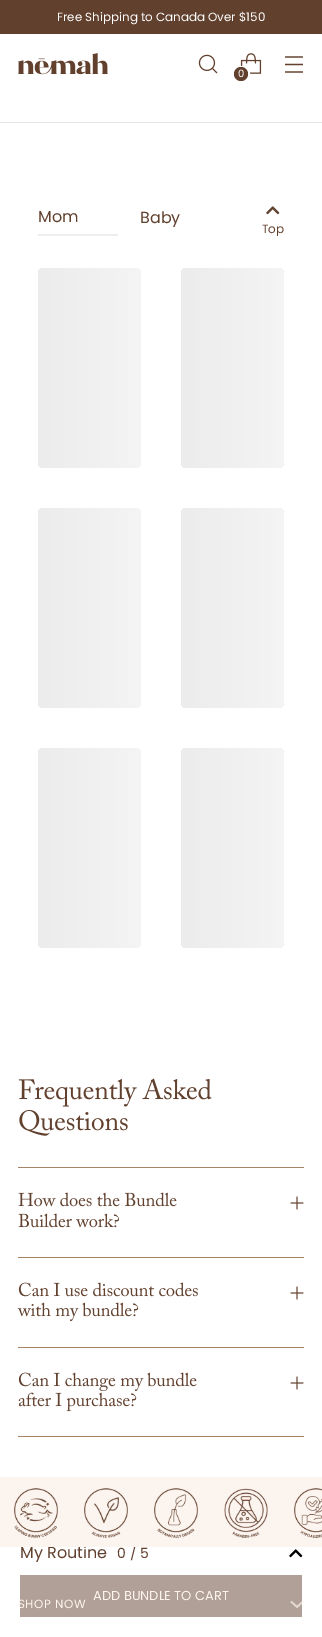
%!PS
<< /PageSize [322 1637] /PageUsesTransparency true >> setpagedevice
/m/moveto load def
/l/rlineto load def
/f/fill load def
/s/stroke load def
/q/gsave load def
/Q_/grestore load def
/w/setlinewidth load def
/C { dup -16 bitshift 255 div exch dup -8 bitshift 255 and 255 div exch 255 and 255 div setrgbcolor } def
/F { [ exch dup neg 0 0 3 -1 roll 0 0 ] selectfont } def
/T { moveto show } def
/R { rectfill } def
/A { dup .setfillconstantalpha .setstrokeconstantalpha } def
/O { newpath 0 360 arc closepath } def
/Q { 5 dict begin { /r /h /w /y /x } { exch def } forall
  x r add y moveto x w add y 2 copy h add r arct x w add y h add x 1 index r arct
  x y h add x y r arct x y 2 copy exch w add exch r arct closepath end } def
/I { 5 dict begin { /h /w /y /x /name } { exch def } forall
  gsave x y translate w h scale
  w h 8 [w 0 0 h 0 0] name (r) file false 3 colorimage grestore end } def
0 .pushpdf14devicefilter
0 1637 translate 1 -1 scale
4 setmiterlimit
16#FFFFFF C
0 0 322 1637 R
16#61402E C
0 0 322 34 R
/Poppins-Regular 11.9 F
16#FFFFFF C
(Free Shipping to Canada Over $150) 57 21 T
(1.rgb) 18 53 90 22 I
(2.rgb) 198 54 20 20 I
(3.rgb) 240 53 22 21 I
2 w
241.5 74.5 7.5 O s
16#61402E C
241 74 7 O f
/Poppins-Regular 10 F
16#FFFFFF C
(0) 238 77 T
16#61402E C
1.3 w
285 64.5 m 18 0 l 285 57 m 18 0 l 285 72 m 18 0 l s
16#E5E5E5 C
0 122 322 1 R
16#EEEEEE C
38 234 80 2 R
/Poppins-Regular 16 F
16#61402E C
(Mom) 38 222 T
(Baby) 140 223 T
(4.rgb) 266 206 14 9 I
/Poppins-Regular 12 F
(Top) 262 233 T
q 38 268 103 200 5 Q clip newpath
<< /ShadingType 2 /ColorSpace /DeviceRGB /Coords [38 368 238 368] /Extend [true true] /Function << /FunctionType 3 /Domain [0 1] /Functions [<< /FunctionType 2 /Domain [0 1] /C0 [.925 .925 .925] /C1 [.957 .957 .957] /N 1 >> << /FunctionType 2 /Domain [0 1] /C0 [.957 .957 .957] /C1 [.925 .925 .925] /N 1 >>] /Bounds [.5] /Encode [0 1 0 1] >> >> shfill Q_
q 181 268 103 200 5 Q clip newpath
<< /ShadingType 2 /ColorSpace /DeviceRGB /Coords [181 368 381 368] /Extend [true true] /Function << /FunctionType 3 /Domain [0 1] /Functions [<< /FunctionType 2 /Domain [0 1] /C0 [.925 .925 .925] /C1 [.957 .957 .957] /N 1 >> << /FunctionType 2 /Domain [0 1] /C0 [.957 .957 .957] /C1 [.925 .925 .925] /N 1 >>] /Bounds [.5] /Encode [0 1 0 1] >> >> shfill Q_
q 38 508 103 200 5 Q clip newpath
<< /ShadingType 2 /ColorSpace /DeviceRGB /Coords [38 608 238 608] /Extend [true true] /Function << /FunctionType 3 /Domain [0 1] /Functions [<< /FunctionType 2 /Domain [0 1] /C0 [.925 .925 .925] /C1 [.957 .957 .957] /N 1 >> << /FunctionType 2 /Domain [0 1] /C0 [.957 .957 .957] /C1 [.925 .925 .925] /N 1 >>] /Bounds [.5] /Encode [0 1 0 1] >> >> shfill Q_
q 181 508 103 200 5 Q clip newpath
<< /ShadingType 2 /ColorSpace /DeviceRGB /Coords [181 608 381 608] /Extend [true true] /Function << /FunctionType 3 /Domain [0 1] /Functions [<< /FunctionType 2 /Domain [0 1] /C0 [.925 .925 .925] /C1 [.957 .957 .957] /N 1 >> << /FunctionType 2 /Domain [0 1] /C0 [.957 .957 .957] /C1 [.925 .925 .925] /N 1 >>] /Bounds [.5] /Encode [0 1 0 1] >> >> shfill Q_
q 38 748 103 200 5 Q clip newpath
<< /ShadingType 2 /ColorSpace /DeviceRGB /Coords [38 848 238 848] /Extend [true true] /Function << /FunctionType 3 /Domain [0 1] /Functions [<< /FunctionType 2 /Domain [0 1] /C0 [.925 .925 .925] /C1 [.957 .957 .957] /N 1 >> << /FunctionType 2 /Domain [0 1] /C0 [.957 .957 .957] /C1 [.925 .925 .925] /N 1 >>] /Bounds [.5] /Encode [0 1 0 1] >> >> shfill Q_
q 181 748 103 200 5 Q clip newpath
<< /ShadingType 2 /ColorSpace /DeviceRGB /Coords [181 848 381 848] /Extend [true true] /Function << /FunctionType 3 /Domain [0 1] /Functions [<< /FunctionType 2 /Domain [0 1] /C0 [.925 .925 .925] /C1 [.957 .957 .957] /N 1 >> << /FunctionType 2 /Domain [0 1] /C0 [.957 .957 .957] /C1 [.925 .925 .925] /N 1 >>] /Bounds [.5] /Encode [0 1 0 1] >> >> shfill Q_
/Poppins-Regular 16 F
(My Routine) 20 1558 T
/Poppins-Regular 14 F
(0 / 5) 117 1558 T
(5.rgb) 289 1549 14 9 I
16#B0A097 C
20 1575 282 42 R
/Poppins-Regular 13 F
16#FDF5ED C
(ADD BUNDLE TO CART) 93 1600 T
(6.rgb) 18 1078 194 29 I
(7.rgb) 19 1110 109 26 I
16#A68364 C
18 1167 286 1 R
18 1257 286 1 R
(8.rgb) 18 1192 159 15 I
(9.rgb) 18 1213 101 15 I
(10.rgb) 290 1196 14 14 I
18 1347 286 1 R
(11.rgb) 18 1282 180 15 I
(12.rgb) 17 1302 122 19 I
(10.rgb) 290 1286 14 14 I
18 1436 286 1 R
(13.rgb) 18 1372 179 19 I
(14.rgb) 18 1392 119 20 I
(10.rgb) 290 1376 14 14 I
16#FCF4EE C
0 1477 322 70 R
(15.rgb) 14 1488 44 50 I
(16.rgb) 84 1488 44 50 I
(17.rgb) 154 1488 44 50 I
(18.rgb) 224 1488 44 50 I
(19.rgb) 294 1488 28 50 I
16#FEFDFC C
18 1629 286 1 R
/Poppins-Regular 11.9 F
16#FDF5ED C
18 1608 m .5 0 (SHOP NOW) ashow
0.7 A
16#FCF4EE C
1.6 w
291 1601.5 m 6 5.5 l 6 -5.5 l s
.poppdf14devicefilter showpage
